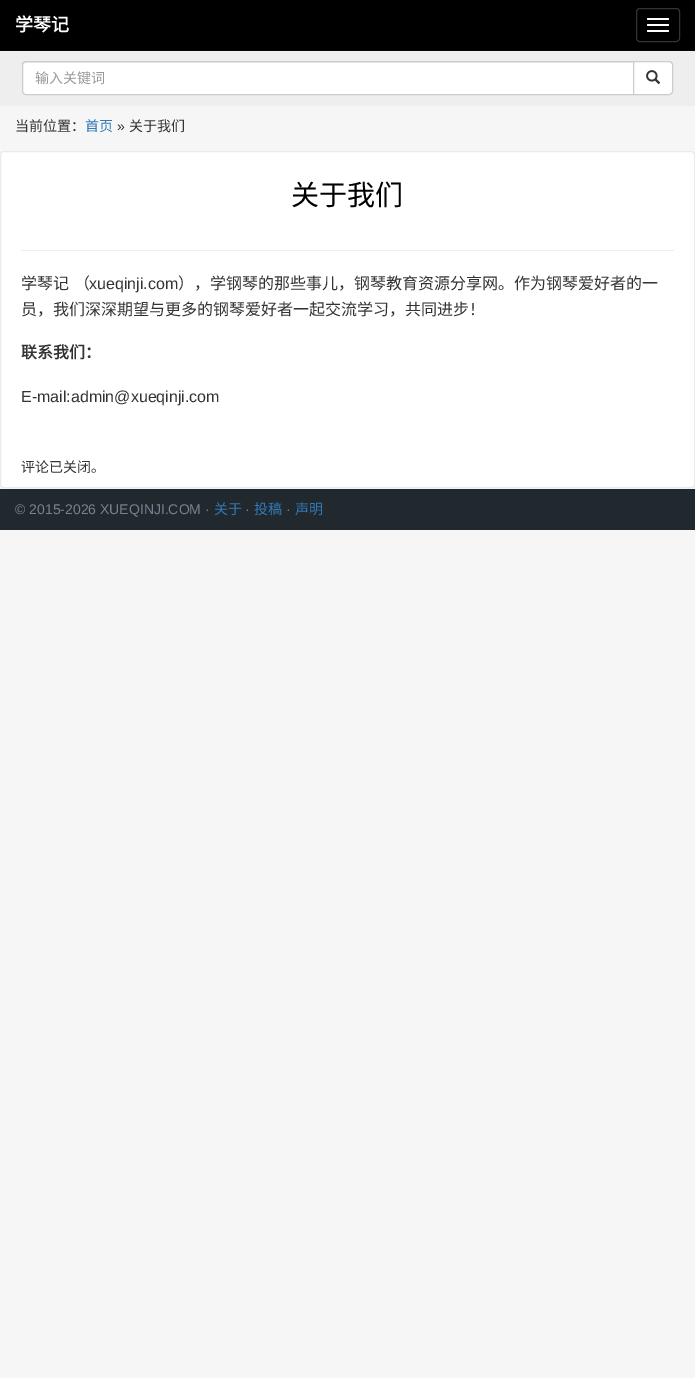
%!PS
<< /PageSize [695 1378] >> setpagedevice
/m/moveto load def
/l/rlineto load def
/c/rcurveto load def
/z/closepath load def
/f/fill load def
/s/stroke load def
/q/gsave load def
/Q_/grestore load def
/C { dup -16 bitshift 255 div exch dup -8 bitshift 255 and 255 div exch 255 and 255 div setrgbcolor } def
/F { [ exch dup neg 0 0 3 -1 roll 0 0 ] selectfont } def
/T { moveto show } def
/R { rectfill } def
/Q { 5 dict begin { /r /h /w /y /x } { exch def } forall
  x r add y moveto x w add y 2 copy h add r arct x w add y h add x 1 index r arct
  x y h add x y r arct x y 2 copy exch w add exch r arct closepath end } def
/I { 5 dict begin { /h /w /y /x /name } { exch def } forall
  gsave x y translate w h scale
  w h 8 [w 0 0 h 0 0] name (r) file false 3 colorimage grestore end } def
0 1378 translate 1 -1 scale
4 setmiterlimit
16#F6F6F6 C
0 0 695 1378 R
16#000000 C
0 0 695 50 R
16#080808 C
0 50 695 1 R
/NotoSansCJKSC-Bold 18 F
16#FFFFFF C
(学琴记) 15 31 T
16#333333 C
636.5 8.5 43 33 3.5 Q s
16#FFFFFF C
647 18 22 2 1 Q f
647 24 22 2 1 Q f
647 30 22 2 1 Q f
16#EEEEEE C
0 51 695 55 R
16#FFFFFF C
26 61 m 608 0 l 0 34 l -608 0 l -2 0 -4 -2 -4 -4 c 0 -26 l 0 -2 2 -4 4 -4 c z f
16#ECECEC C
26 63 m 607 0 l 0 -1 l -607 0 l -2 0 -3 1 -3 3 c 0 1 l 0 -2 1 -3 3 -3 c z f
16#CCCCCC C
26 61.5 m 607.5 0 l 0 33 l -607.5 0 l -2 0 -3.5 -1.5 -3.5 -3.5 c 0 -26 l 0 -2 1.5 -3.5 3.5 -3.5 c z s
/NotoSansCJKSC-Regular 14 F
16#999999 C
(输入关键词) 35 83 T
16#FFFFFF C
633.5 61.5 m 35.5 0 l 2 0 3.5 1.5 3.5 3.5 c 0 26 l 0 2 -1.5 3.5 -3.5 3.5 c -35.5 0 l z q f Q_
16#CCCCCC C
s
(1.rgb) 646 70 15 14 I
16#333333 C
(当前位置：) 15 131 T
16#337AB7 C
(首页) 85 131 T
/LiberationSans-Regular 14 F
16#333333 C
(») 117 131 T
/NotoSansCJKSC-Regular 14 F
(关于我们) 129 131 T
16#FFFFFF C
.5 151.5 694 336 3.5 Q q f Q_
16#EAEAEA C
s
16#EEEEEE C
21 250 653 1 R
/NotoSansCJKSC-Regular 28 F
16#000000 C
(关于我们) 291 205 T
/NotoSansCJKSC-Regular 16 F
16#333333 C
21 289 m 1 0 32 (学琴记 （) widthshow
/LiberationSans-Regular 16 F
(xueqinji.com) 89 289 T
/NotoSansCJKSC-Regular 16 F
(），学钢琴的那些事儿，钢琴教育资源分享网。作为钢琴爱好者的一) 178 289 T
(员，我们深深期望与更多的钢琴爱好者一起交流学习，共同进步！) 21 315 T
/NotoSansCJKSC-Bold 16 F
(联系我们：) 21 358 T
/LiberationSans-Regular 16 F
(E-mail:admin@xueqinji.com) 21 402 T
/NotoSansCJKSC-Regular 14 F
(评论已关闭。) 21 472 T
16#21292E C
0 489 695 41 R
/LiberationSans-Regular 14 F
16#76838F C
(© 2015-2026 XUEQINJI.COM ·) 15 514 T
/NotoSansCJKSC-Regular 14 F
16#337AB7 C
(关于) 214 514 T
/LiberationSans-Regular 14 F
16#76838F C
(·) 245 514 T
/NotoSansCJKSC-Regular 14 F
16#337AB7 C
(投稿) 254 514 T
/LiberationSans-Regular 14 F
16#76838F C
(·) 286 514 T
/NotoSansCJKSC-Regular 14 F
16#337AB7 C
(声明) 295 514 T
showpage
